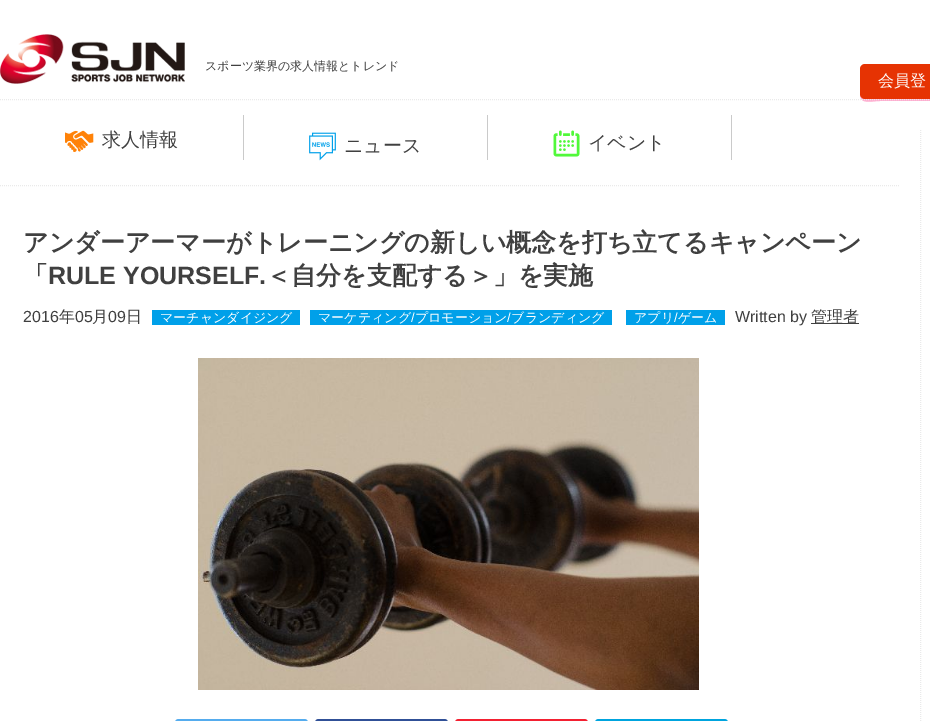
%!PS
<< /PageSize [930 721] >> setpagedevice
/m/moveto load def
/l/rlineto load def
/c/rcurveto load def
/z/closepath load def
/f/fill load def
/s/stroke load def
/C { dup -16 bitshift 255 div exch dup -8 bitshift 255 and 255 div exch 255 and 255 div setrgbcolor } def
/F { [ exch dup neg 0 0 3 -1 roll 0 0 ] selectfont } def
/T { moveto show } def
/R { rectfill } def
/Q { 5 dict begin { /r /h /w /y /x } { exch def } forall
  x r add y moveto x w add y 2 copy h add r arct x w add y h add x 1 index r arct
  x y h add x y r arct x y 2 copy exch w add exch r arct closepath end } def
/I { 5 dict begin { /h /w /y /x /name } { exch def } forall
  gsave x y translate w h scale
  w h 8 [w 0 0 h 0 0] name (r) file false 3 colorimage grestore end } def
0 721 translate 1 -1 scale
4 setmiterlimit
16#FFFFFF C
0 0 930 721 R
(1.rgb) 0 34 185 50 I
/WenQuanYiZenHei-Medium 12 F
16#404040 C
(スポーツ業界の求人情報とトレンド) 205 70 T
16#FFABCF C
860 94 m 0 11 11 7 20 7 c 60 0 l 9 0 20 4 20 -7 c 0 3 -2 5 -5 5 c -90 0 l -3 0 -5 -2 -5 -5 c z f
16#E63303 C
860 64 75 35 5 Q f
/WenQuanYiZenHei-Medium 16 F
16#FFFFFF C
(会員登) 878 86 T
16#EAEAEA C
[1 1] 0 setdash
0 99.5 m 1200 0 l s
0 185.5 m 900 0 l s
16#CACACA C
243 115 1 45 R
(2.rgb) 65 130 29 22 I
/WenQuanYiZenHei-Medium 19 F
16#404040 C
(求人情報) 102 146 T
16#CACACA C
487 115 1 45 R
(3.rgb) 309 132 27 29 I
16#404040 C
(ニュース) 344 152 T
16#CACACA C
731 115 1 45 R
(4.rgb) 553 130 27 27 I
16#404040 C
(イベント) 588 149 T
/WenQuanYiZenHei-Bold 25 F
(アンダーアーマーがトレーニングの新しい概念を打ち立てるキャンペーン) 23 251 T
(「) 23 284 T
/LiberationSans-Bold 25 F
(RULE YOURSELF.) 48 284 T
/WenQuanYiZenHei-Bold 25 F
(＜自分を支配する＞」を実施) 266 284 T
/LiberationSans-Regular 16 F
(2016) 23 322 T
/WenQuanYiZenHei-Medium 16 F
(年) 59 322 T
/LiberationSans-Regular 16 F
(05) 75 322 T
/WenQuanYiZenHei-Medium 16 F
(月) 92 322 T
/LiberationSans-Regular 16 F
(09) 108 322 T
/WenQuanYiZenHei-Medium 16 F
(日) 126 322 T
16#00A0E9 C
152 310 148 15 R
/WenQuanYiZenHei-Medium 13 F
16#FFFFFF C
(マーチャンダイジング) 160 322 T
16#00A0E9 C
310 310 302 15 R
16#FFFFFF C
(マーケティング プロモーション ブランディング) 318 322 T
16#00A0E9 C
626 310 99 15 R
16#FFFFFF C
(アプリ) 634 322 T
/LiberationSans-Regular 13 F
(/) 674 322 T
/WenQuanYiZenHei-Medium 13 F
(ゲーム) 678 322 T
/LiberationSans-Regular 16 F
16#404040 C
(Written by) 735 322 T
811 323 48 1 R
/WenQuanYiZenHei-Medium 16 F
(管理者) 811 322 T
/LiberationSans-Regular 13 F
16#FFFFFF C
(/) 411 322 T
(/) 507 322 T
(5.rgb) 198 358 501 332 I
(6.rgb) 175 719 133 2 I
(7.rgb) 315 719 133 2 I
(8.rgb) 455 719 133 2 I
(9.rgb) 595 719 133 2 I
16#EAEAEA C
920.5 130 m 0 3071 l s
showpage
